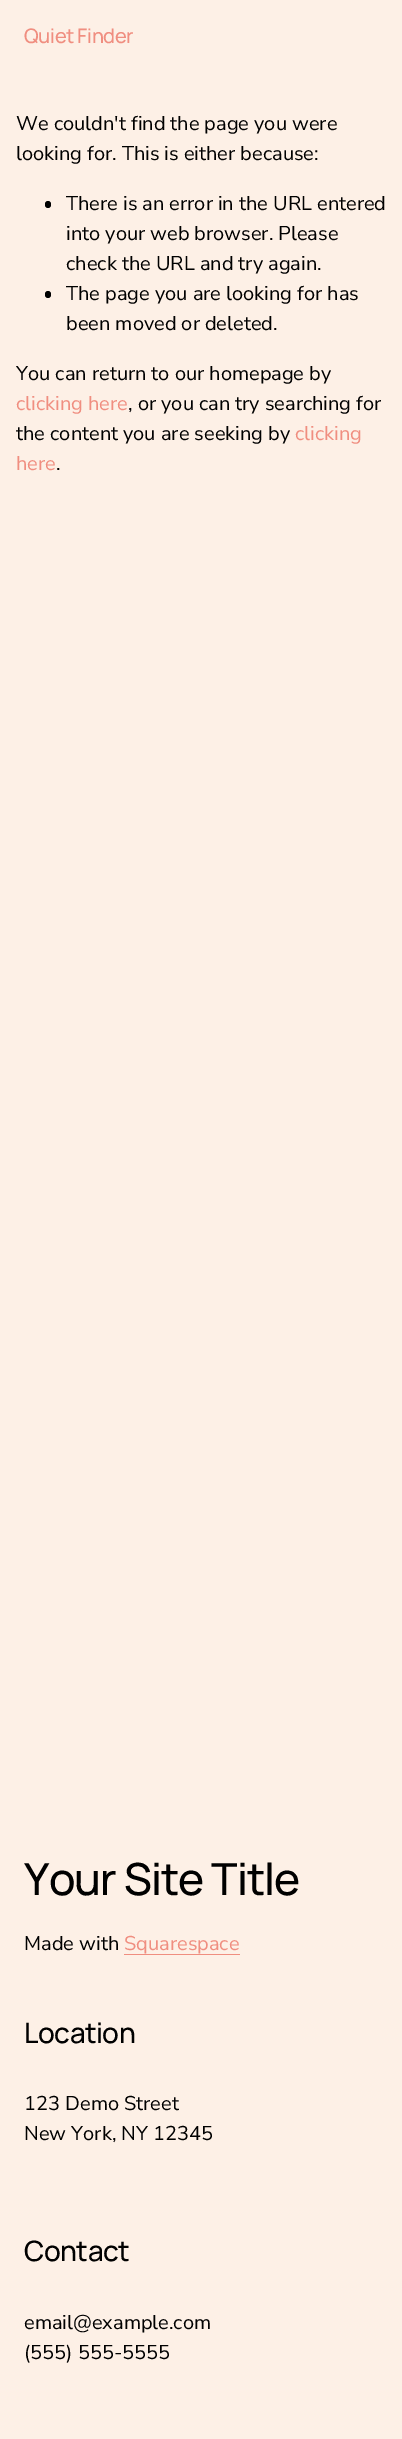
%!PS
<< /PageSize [402 2439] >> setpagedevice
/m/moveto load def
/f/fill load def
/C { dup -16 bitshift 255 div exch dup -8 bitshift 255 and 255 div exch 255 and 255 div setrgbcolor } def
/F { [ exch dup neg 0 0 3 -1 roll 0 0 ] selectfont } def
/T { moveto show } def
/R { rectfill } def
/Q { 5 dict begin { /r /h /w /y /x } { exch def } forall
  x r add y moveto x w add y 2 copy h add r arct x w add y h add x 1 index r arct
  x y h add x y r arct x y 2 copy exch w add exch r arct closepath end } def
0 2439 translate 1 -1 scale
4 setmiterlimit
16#FDF0E6 C
0 0 402 2439 R
/Manrope-Medium 20 F
16#F08E80 C
24 43 m -.4 0 (Quiet Finder) ashow
/NunitoSans-Regular 20 F
16#000000 C
(We couldn't find the page you were) 16 130 T
(looking for. This is either because:) 16 160 T
45 201 6 7 3 Q f
(There is an error in the URL entered) 66 210 T
(into your web browser. Please) 66 240 T
(check the URL and try again.) 66 270 T
45 291 6 7 3 Q f
(The page you are looking for has) 66 300 T
(been moved or deleted.) 66 330 T
(You can return to our homepage by) 16 380 T
16#F08E80 C
(clicking here) 16 410 T
16#000000 C
(, or you can try searching for) 128 410 T
(the content you are seeking by) 16 440 T
16#F08E80 C
(clicking) 295 440 T
(here) 16 470 T
16#000000 C
(.) 56 470 T
/Manrope-Medium 44.25 F
24 1895 m -.9 0 (Your Site Title) ashow
/NunitoSans-Regular 20 F
(Made with) 24 1950 T
16#F08E80 C
(Squarespace) 124 1950 T
124 1954 116 1 R
/Manrope-Medium 28 F
16#000000 C
24 2043 m -.5 0 (Location) ashow
/NunitoSans-Regular 20 F
(123 Demo Street) 24 2110 T
(New York, NY 12345) 24 2140 T
/Manrope-Medium 28 F
24 2261 m -.5 0 (Contact) ashow
/NunitoSans-Regular 20 F
(email@example.com) 24 2329 T
(\(555\) 555-5555) 24 2359 T
showpage
